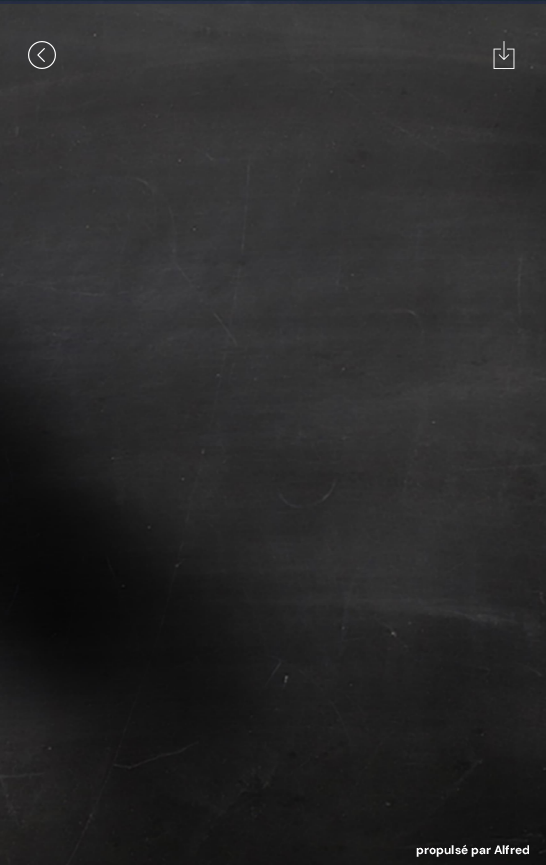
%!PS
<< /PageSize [546 865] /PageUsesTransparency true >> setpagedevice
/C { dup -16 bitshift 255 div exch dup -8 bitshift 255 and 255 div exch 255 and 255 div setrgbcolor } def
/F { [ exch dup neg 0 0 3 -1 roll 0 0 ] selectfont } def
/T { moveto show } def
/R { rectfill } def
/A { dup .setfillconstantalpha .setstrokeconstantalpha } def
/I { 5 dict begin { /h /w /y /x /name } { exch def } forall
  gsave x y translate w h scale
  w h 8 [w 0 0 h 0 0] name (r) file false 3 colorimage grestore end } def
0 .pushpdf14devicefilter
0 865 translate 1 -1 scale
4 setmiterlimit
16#FFFFFF C
0 0 546 865 R
(1.rgb) 0 0 546 865 I
0.3 A
16#001358 C
0 0 546 4 R
1 A
(2.rgb) 28 41 28 28 I
(3.rgb) 493 41 22 28 I
/DMSans-Bold 12 F
16#FFFFFF C
(propulsé par Alfred) 416 854 T
.poppdf14devicefilter showpage
